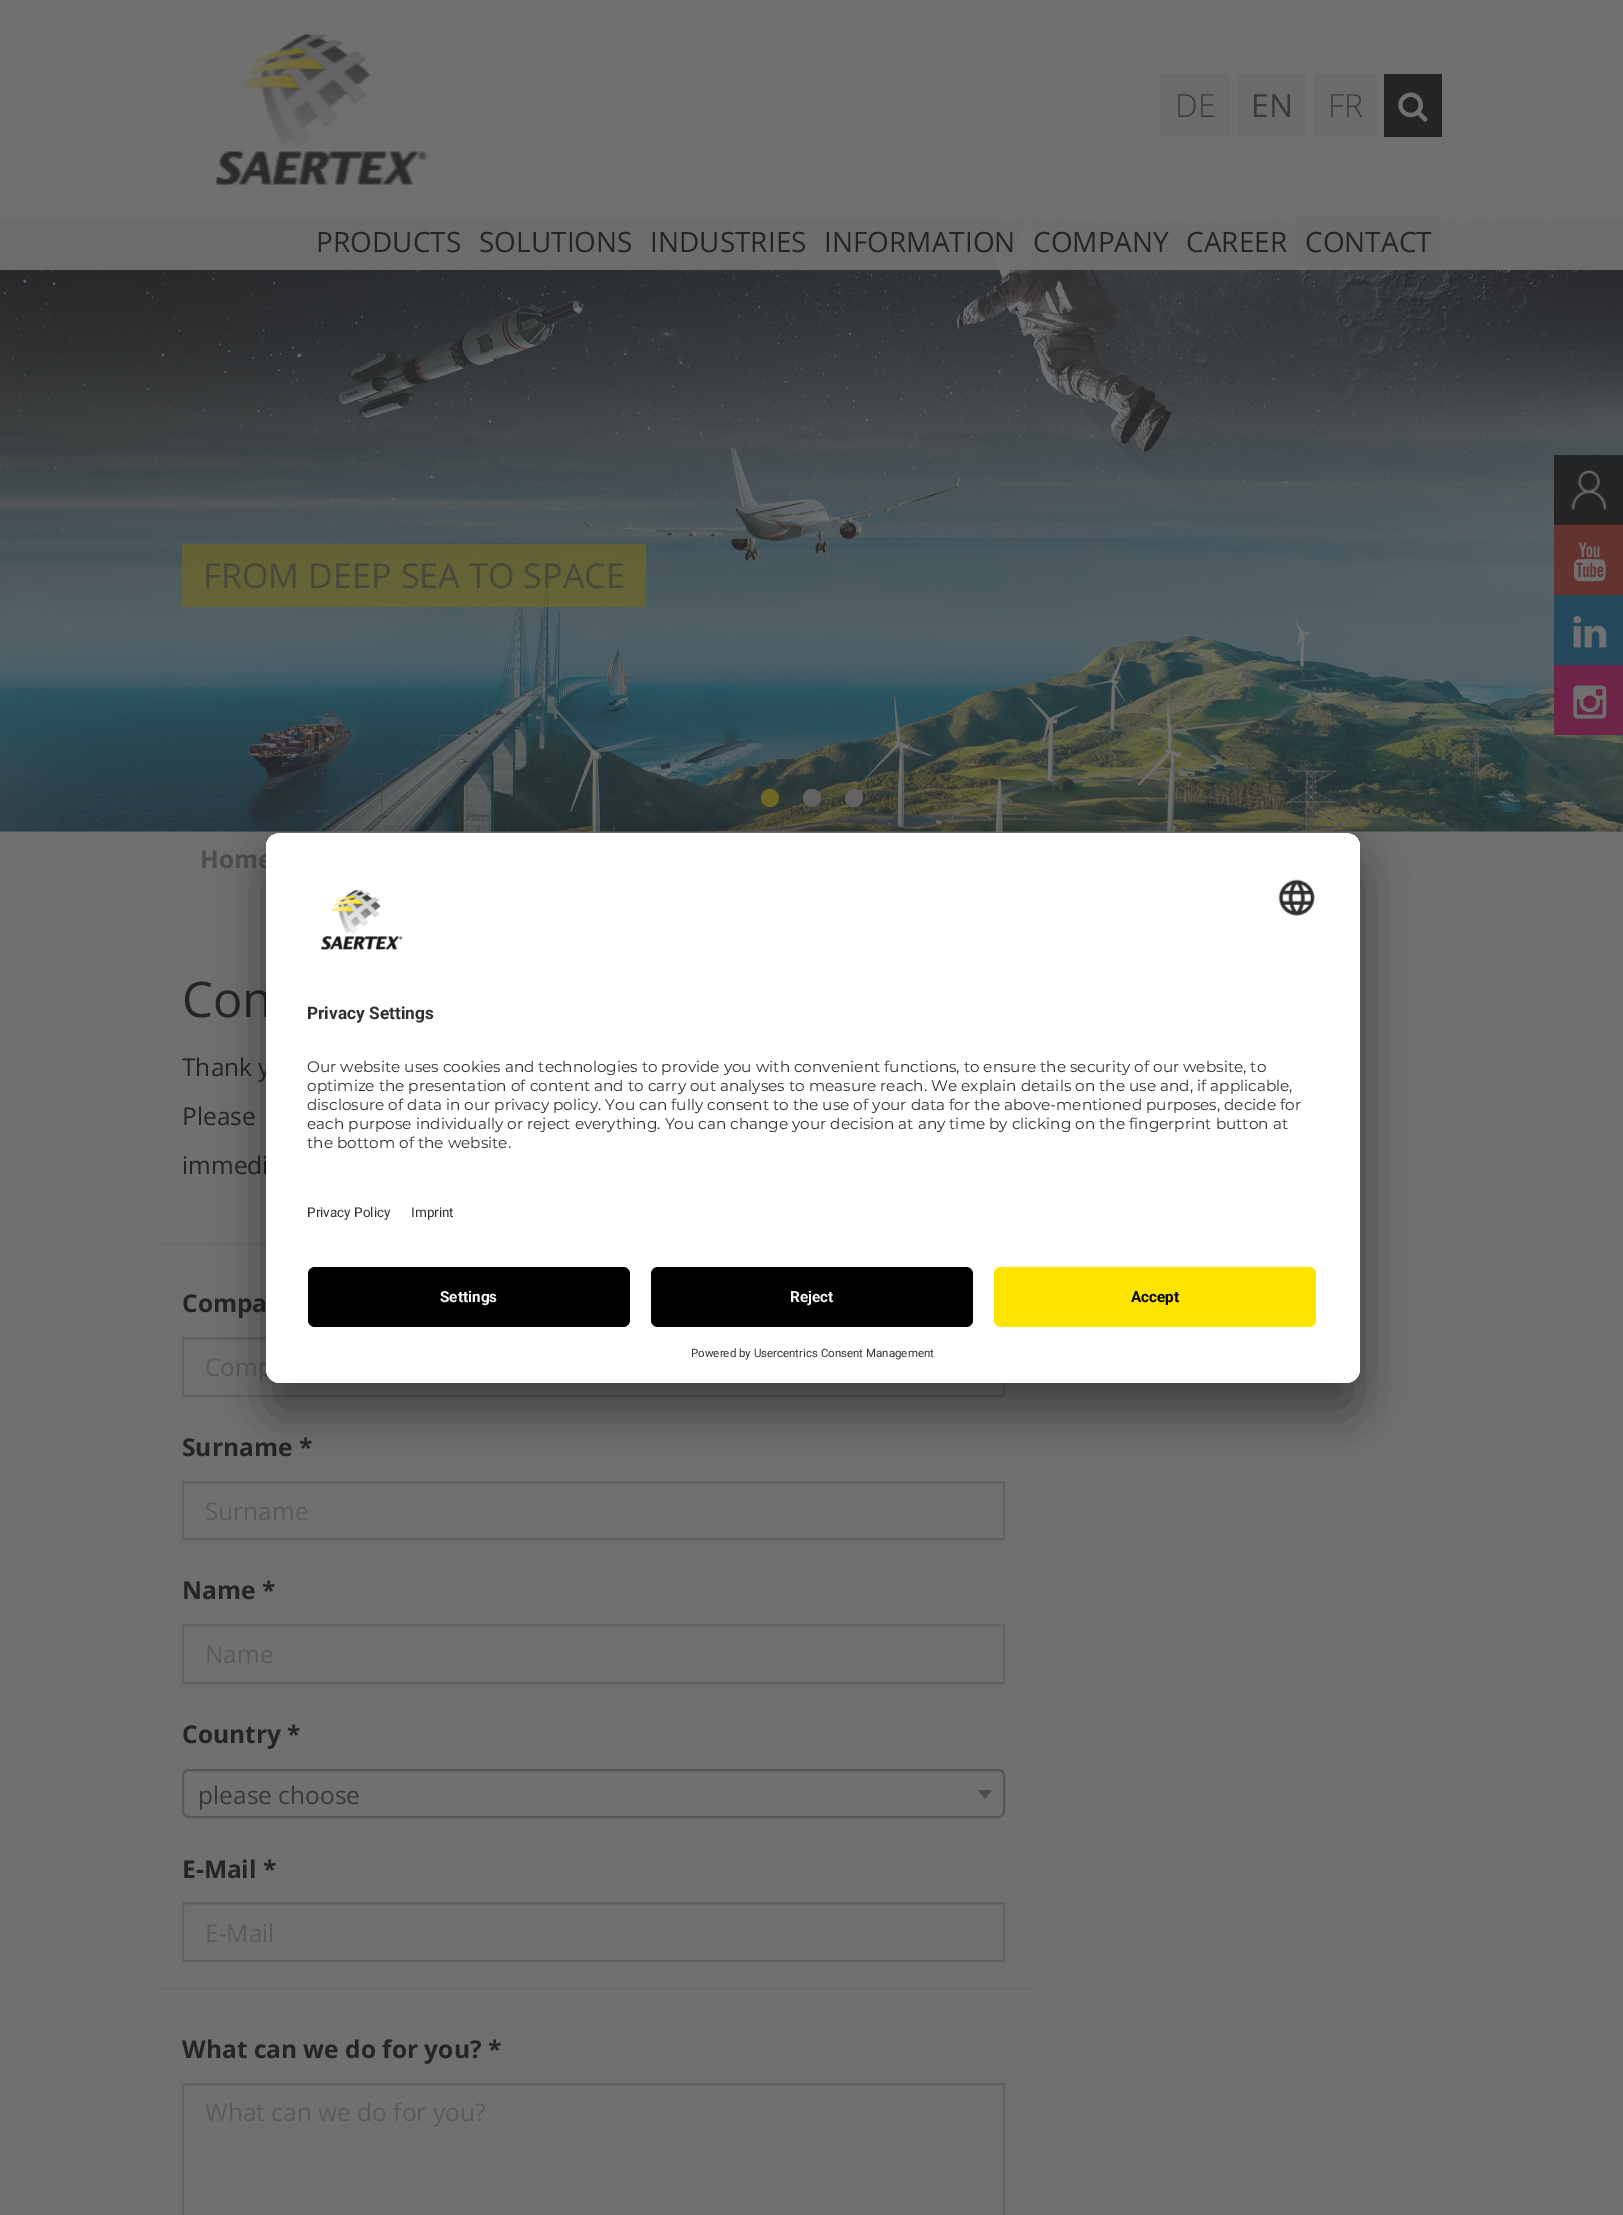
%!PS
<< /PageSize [1623 2215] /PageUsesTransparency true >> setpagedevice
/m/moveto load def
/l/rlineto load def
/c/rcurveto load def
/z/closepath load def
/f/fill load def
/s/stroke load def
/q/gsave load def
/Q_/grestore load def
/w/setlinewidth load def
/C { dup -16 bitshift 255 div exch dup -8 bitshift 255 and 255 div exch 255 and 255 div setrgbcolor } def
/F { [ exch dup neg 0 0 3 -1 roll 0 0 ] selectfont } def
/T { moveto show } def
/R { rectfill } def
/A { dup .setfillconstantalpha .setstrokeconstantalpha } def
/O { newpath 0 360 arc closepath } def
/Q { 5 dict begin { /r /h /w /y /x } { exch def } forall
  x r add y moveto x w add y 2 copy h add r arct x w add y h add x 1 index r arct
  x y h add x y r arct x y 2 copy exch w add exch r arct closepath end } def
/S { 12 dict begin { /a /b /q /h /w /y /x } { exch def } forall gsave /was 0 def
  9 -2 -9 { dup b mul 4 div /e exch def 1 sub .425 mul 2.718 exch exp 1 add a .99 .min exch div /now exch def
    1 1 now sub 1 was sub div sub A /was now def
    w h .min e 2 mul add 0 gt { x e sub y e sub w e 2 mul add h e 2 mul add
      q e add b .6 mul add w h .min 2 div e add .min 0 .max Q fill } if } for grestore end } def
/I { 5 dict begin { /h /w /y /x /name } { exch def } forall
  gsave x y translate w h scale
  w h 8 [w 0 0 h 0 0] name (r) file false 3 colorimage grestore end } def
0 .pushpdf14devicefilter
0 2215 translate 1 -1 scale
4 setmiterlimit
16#707070 C
0 0 1623 2215 R
(3.rgb) 0 219 1623 613 I
0.95 A
0 219 1623 51 R
1 A
(1.rgb) 214 32 215 155 I
16#6B6B6B C
1160 74 69 63 R
/OpenSans-Light 32 F
16#383838 C
(DE) 1175 117 T
16#6B6B6B C
1237 74 69 63 R
/OpenSans-Regular 32 F
16#383838 C
(EN) 1251 117 T
16#6B6B6B C
1314 74 63 63 R
/OpenSans-Light 32 F
16#383838 C
(FR) 1328 117 T
16#242424 C
1384 74 58 63 R
(2.rgb) 1398 92 30 30 I
/OpenSans-Regular 28 F
(PRODUCTS) 316 252 T
(SOLUTIONS) 479 252 T
(INDUSTRIES) 650 252 T
(INFORMATION) 824 252 T
(COMPANY) 1033 252 T
(CAREER) 1186 252 T
16#6B6B6B C
1297 215 143 53 R
16#242424 C
(CONTACT) 1305 252 T
0.69 A
16#706824 C
182 544 464 63 R
/OpenSans-Regular 34.25 F
1 A
16#47473C C
(FROM DEEP SEA TO SPACE) 203 588 T
16#706824 C
770 798 9 O f
16#646464 C
812 798 9 O f
854 798 9 O f
/OpenSans-Bold 24.5 F
16#4E4E4E C
(Home) 200 868 T
16#242424 C
1554 455 69 70 R
(4.rgb) 1570 470 37 40 I
16#62332F C
1554 525 69 70 R
(5.rgb) 1573 542 33 40 I
16#24475A C
1554 595 69 70 R
(6.rgb) 1573 615 34 33 I
16#6C2447 C
1554 665 69 70 R
(7.rgb) 1573 685 34 34 I
/OpenSans-Regular 49 F
16#242424 C
(Con) 182 1017 T
/OpenSans-Regular 24.5 F
(Thank y) 182 1076 T
(Please) 182 1125 T
(immedi) 182 1174 T
16#6B6B6B C
156 1243 110 2 R
/OpenSans-Bold 24.5 F
16#242424 C
(Compa) 182 1312 T
16#6B6B6B C
184 1339 82 2 R
16#616161 C
2 w
183 1338 821 58 rectstroke
/OpenSans-Regular 24.5 F
16#595959 C
(Comp) 205 1376 T
/OpenSans-Bold 24.5 F
16#242424 C
(Surname *) 182 1456 T
16#6B6B6B C
184 1483 819 1 R
16#616161 C
183 1482 821 57 rectstroke
/OpenSans-Regular 24.5 F
16#595959 C
(Surname) 205 1520 T
/OpenSans-Bold 24.5 F
16#242424 C
(Name *) 182 1599 T
16#6B6B6B C
184 1626 819 2 R
16#616161 C
183 1625 821 58 rectstroke
/OpenSans-Regular 24.5 F
16#595959 C
(Name) 205 1663 T
/OpenSans-Bold 24.5 F
16#242424 C
(Country *) 182 1743 T
16#575757 C
183 1770 821 47 6 Q s
/OpenSans-Regular 24.5 F
16#383838 C
(please choose) 198 1804 T
16#4D4D4D C
978 1790 m 14 0 l -7 9 l z f
/OpenSans-Bold 24.5 F
16#242424 C
(E-Mail *) 182 1878 T
16#6B6B6B C
184 1904 819 2 R
16#616161 C
183 1903 821 58 rectstroke
/OpenSans-Regular 24.5 F
16#595959 C
(E-Mail) 205 1942 T
16#6B6B6B C
156 1988 875 2 R
/OpenSans-Bold 24.5 F
16#242424 C
(What can we do for you? *) 182 2058 T
16#6B6B6B C
184 2085 819 1 R
16#616161 C
183 2084 821 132 rectstroke
/OpenSans-Regular 24.5 F
16#595959 C
(What can we do for you?) 205 2121 T
16#000000 C
266 868 1094 550 14 24.5 .3 S
266 842 1094 549 14 23 .22 S
16#FFFFFF C
266 833 1094 550 14 Q f
q
266 833 1094 550 14 Q clip newpath
280 833 m 1066 0 l 7.5 0 14 6.5 14 14 c 0 406 l -1094 0 l 0 -406 l 0 -7.5 6.5 -14 14 -14 c z clip newpath
266 835 1094 418 R
Q_
(8.rgb) 320 889 83 61 I
(9.rgb) 1278 879 37 37 I
/Roboto-Bold 17.25 F
16#303030 C
(Privacy Settings) 307 1019 T
/Montserrat-Regular 15.3 F
(Our website uses cookies and technologies to provide you with convenient functions, to ensure the security of our website, to) 307 1072 T
(optimize the presentation of content and to carry out analyses to measure reach. We explain details on the use and, if applicable,) 307 1091 T
(disclosure of data in our privacy policy. You can fully consent to the use of your data for the above-mentioned purposes, decide for) 307 1110 T
(each purpose individually or reject everything. You can change your decision at any time by clicking on the fingerprint button at) 307 1129 T
(the bottom of the website.) 307 1148 T
/Roboto-Regular 13.5 F
(Privacy Policy) 307 1217 T
(Imprint) 411 1217 T
16#FFFFFF C
266 1253 m 1094 0 l 0 116 l 0 7.5 -6.5 14 -14 14 c -1066 0 l -7.5 0 -14 -6.5 -14 -14 c z f
16#000000 C
308 1267 322 60 7 Q f
/Roboto-Bold 15.3 F
16#FAFAFA C
(Settings) 440 1302 T
16#000000 C
651 1267 322 60 7 Q f
16#FAFAFA C
(Reject) 790 1302 T
16#FFE400 C
994 1267 322 60 7 Q f
16#000000 C
(Accept) 1131 1302 T
/Roboto-Regular 11.5 F
16#303030 C
(Powered by Usercentrics Consent Management) 691 1357 T
.poppdf14devicefilter showpage
